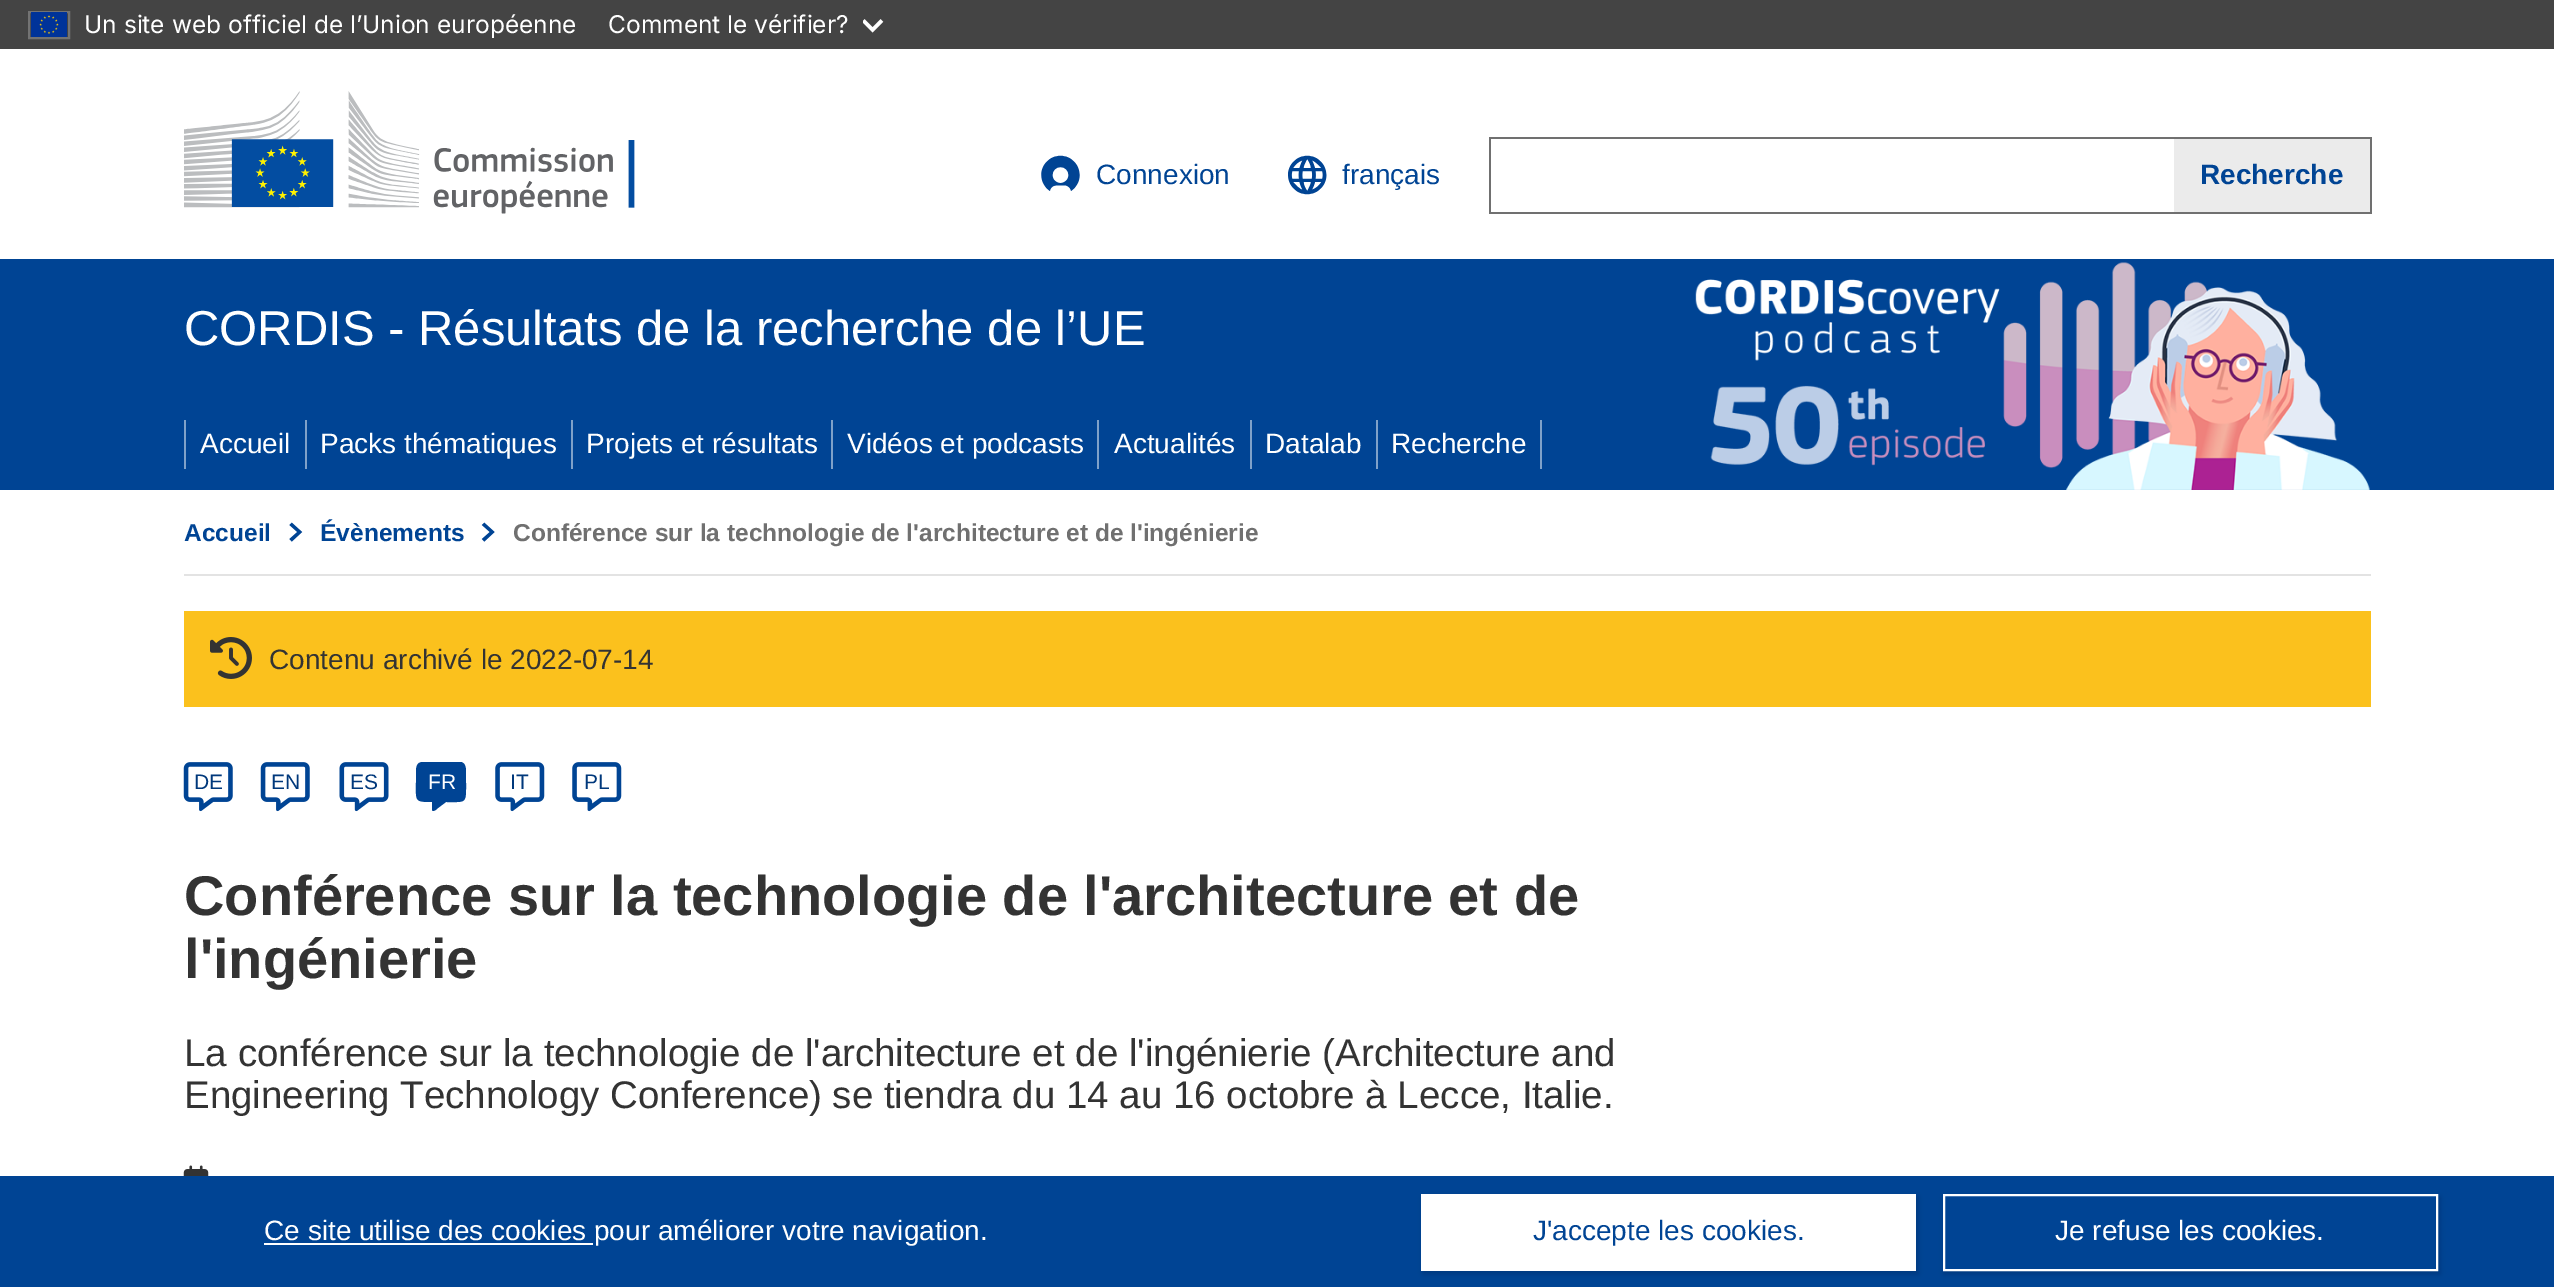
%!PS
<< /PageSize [2554 1287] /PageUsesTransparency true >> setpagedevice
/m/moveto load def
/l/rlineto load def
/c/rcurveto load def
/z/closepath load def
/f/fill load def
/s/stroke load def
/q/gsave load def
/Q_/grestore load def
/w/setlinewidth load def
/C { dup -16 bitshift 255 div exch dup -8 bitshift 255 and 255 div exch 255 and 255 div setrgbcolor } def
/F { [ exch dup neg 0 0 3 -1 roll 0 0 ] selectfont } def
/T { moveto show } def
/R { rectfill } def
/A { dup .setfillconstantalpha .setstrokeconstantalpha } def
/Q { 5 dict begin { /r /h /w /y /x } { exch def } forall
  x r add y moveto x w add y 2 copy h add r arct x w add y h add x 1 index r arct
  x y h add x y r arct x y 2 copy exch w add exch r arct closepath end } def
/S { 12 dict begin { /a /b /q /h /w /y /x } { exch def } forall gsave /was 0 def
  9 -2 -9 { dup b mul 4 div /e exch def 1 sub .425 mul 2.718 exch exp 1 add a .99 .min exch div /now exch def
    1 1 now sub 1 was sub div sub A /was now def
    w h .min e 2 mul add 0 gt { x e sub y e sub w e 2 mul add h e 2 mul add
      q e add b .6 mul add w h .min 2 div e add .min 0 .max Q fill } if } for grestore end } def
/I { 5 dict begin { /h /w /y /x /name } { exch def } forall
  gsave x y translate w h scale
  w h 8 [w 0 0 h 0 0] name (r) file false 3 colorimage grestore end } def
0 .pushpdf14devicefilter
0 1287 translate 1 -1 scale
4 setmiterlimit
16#FFFFFF C
0 0 2554 1287 R
16#444444 C
0 0 2554 49 R
16#737373 C
2 w
29 12 40 26 rectstroke
(1.rgb) 31 12 36 25 I
/Inter-Regular 24.5 F
16#FFFFFF C
(Un site web officiel de l’Union européenne) 84 33 T
(Comment le vérifier?) 608 33 T
(2.rgb) 863 19 21 14 I
(3.rgb) 184 91 451 123 I
(4.rgb) 1041 155 39 36 I
/LiberationSans-Regular 28 F
16#004494 C
(Connexion) 1096 184 T
(5.rgb) 1288 155 39 40 I
(français) 1342 184 T
16#707070 C
1489 137 882 2 R
1489 212 685 2 R
1489 137 2 77 R
16#EBEBEB C
2174 139 196 73 R
16#707070 C
2370 137 2 77 R
2174 212 197 2 R
/LiberationSans-Bold 28 F
16#004494 C
(Recherche) 2200 184 T
0 259 2554 231 R
/LiberationSans-Regular 49 F
16#FFFFFF C
(CORDIS - Résultats de la recherche de l’UE) 184 345 T
(6.rgb) 1695 262 675 228 I
16#7FA1C9 C
184 420 2 49 R
/LiberationSans-Regular 28 F
16#FFFFFF C
(Accueil) 200 453 T
16#7FA1C9 C
305 420 2 49 R
16#FFFFFF C
(Packs thématiques) 320 453 T
16#7FA1C9 C
571 420 2 49 R
16#FFFFFF C
(Projets et résultats) 586 453 T
16#7FA1C9 C
831 420 2 49 R
16#FFFFFF C
(Vidéos et podcasts) 847 453 T
16#7FA1C9 C
1097 420 2 49 R
16#FFFFFF C
(Actualités) 1114 453 T
16#7FA1C9 C
1250 420 2 49 R
16#FFFFFF C
(Datalab) 1265 453 T
16#7FA1C9 C
1376 420 2 49 R
16#FFFFFF C
(Recherche) 1391 453 T
16#7FA1C9 C
1540 420 2 49 R
16#E3E3E3 C
184 574 2187 2 R
/LiberationSans-Bold 24.5 F
16#004494 C
(Accueil) 184 541 T
(7.rgb) 289 522 14 20 I
(Évènements) 320 541 T
(8.rgb) 481 522 14 20 I
16#707070 C
(Conférence sur la technologie de l'architecture et de l'ingénierie) 513 541 T
16#FBC11D C
184 611 2187 96 R
(9.rgb) 210 637 42 42 I
/LiberationSans-Regular 28 F
16#333333 C
(Contenu archivé le 2022-07-14) 269 669 T
(10.rgb) 183 762 50 50 I
/LiberationSans-Regular 21 F
16#00387B C
(DE) 194 789 T
(10.rgb) 260 762 50 50 I
(EN) 271 789 T
(11.rgb) 339 762 50 50 I
(ES) 350 789 T
16#004494 C
423 762 m -7 0 -7 6 -7 11 c 0 9 l 0 19 -2 20 16 20 c 0 8 l 1 3 6 -2 6 -2 c 8 -6 l 21 0 20 2 20 -20 c 0 -9 l 0 -4 0 -10 -5 -11 c z f
16#FFFFFF C
(FR) 428 789 T
(12.rgb) 495 762 50 50 I
16#00387B C
(IT) 510 789 T
(12.rgb) 572 762 50 50 I
(PL) 584 789 T
/LiberationSans-Bold 56 F
16#333333 C
(Conférence sur la technologie de l'architecture et de) 184 915 T
(l'ingénierie) 184 978 T
/LiberationSans-Regular 38.5 F
(La conférence sur la technologie de l'architecture et de l'ingénierie \(Architecture and) 184 1066 T
(Engineering Technology Conference\) se tiendra du 14 au 16 octobre à Lecce, Italie.) 184 1108 T
(13.rgb) 183 1165 26 11 I
16#004494 C
0 1176 2554 111 R
16#FFFFFF C
264 1243 329 2 R
/LiberationSans-Regular 28 F
(Ce site utilise des cookies pour améliorer votre navigation.) 264 1240 T
16#000000 C
1423 1197 495 77 0 2.5 .15 S
16#FFFFFF C
1421 1194 495 77 R
16#004494 C
(J'accepte les cookies.) 1533 1240 T
16#000000 C
1944 1197 496 77 0 2.5 .15 S
16#004494 C
1944 1195 m 493 0 l 0 75 l -493 0 l z q f Q_
16#FFFFFF C
s
(Je refuse les cookies.) 2055 1240 T
.poppdf14devicefilter showpage
